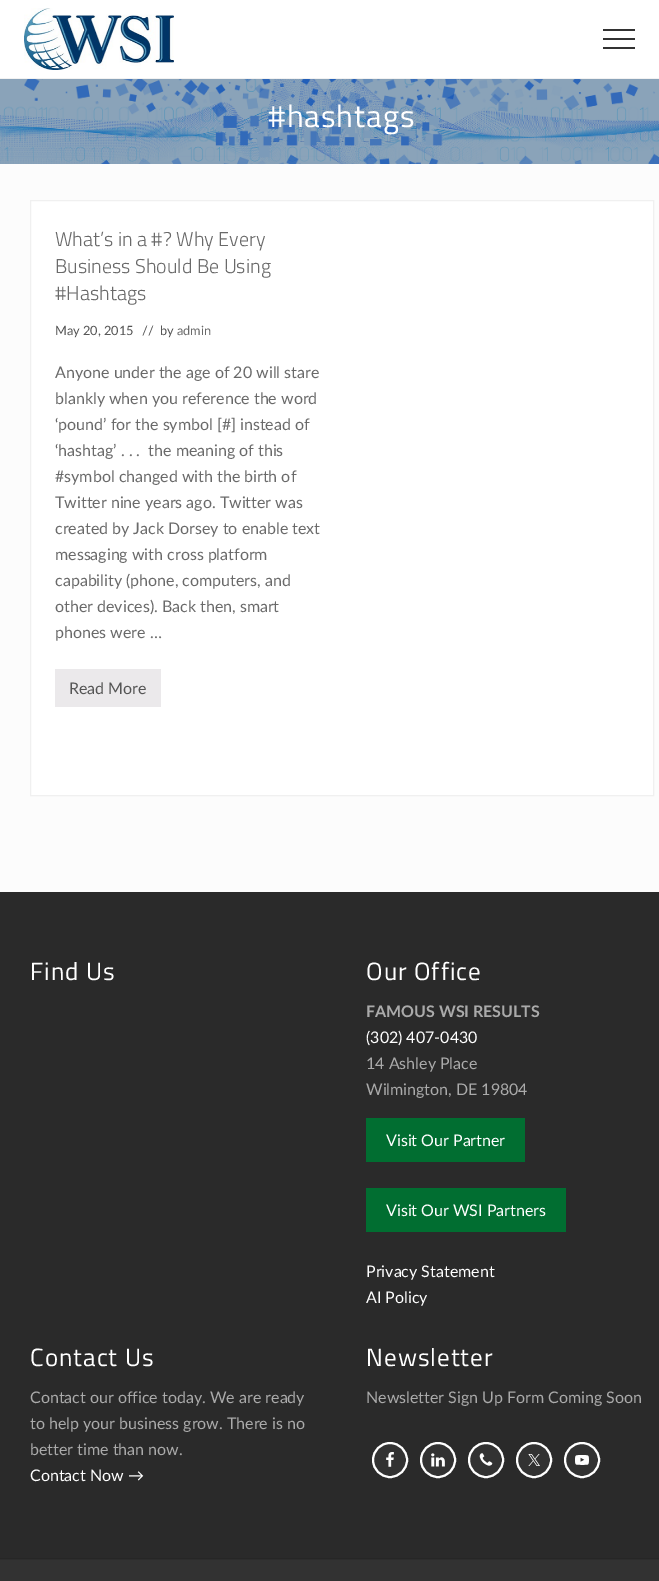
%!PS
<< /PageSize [659 1581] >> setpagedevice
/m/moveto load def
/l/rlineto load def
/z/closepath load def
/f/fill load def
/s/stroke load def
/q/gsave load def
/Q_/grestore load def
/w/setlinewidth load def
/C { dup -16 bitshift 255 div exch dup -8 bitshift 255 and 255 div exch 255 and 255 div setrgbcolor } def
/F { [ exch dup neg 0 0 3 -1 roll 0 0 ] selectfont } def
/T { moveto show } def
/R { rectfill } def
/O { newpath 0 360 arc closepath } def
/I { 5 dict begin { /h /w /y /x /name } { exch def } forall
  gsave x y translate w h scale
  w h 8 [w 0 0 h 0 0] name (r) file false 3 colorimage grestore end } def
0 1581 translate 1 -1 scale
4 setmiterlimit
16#FCFCFC C
0 0 659 1581 R
16#FFFFFF C
0 0 659 78 R
16#F2F2F2 C
0 78 659 1 R
(1.rgb) 24 8 150 62 I
16#323232 C
603 38 32 2 R
603 29 32 2 R
603 47 32 2 R
(2.rgb) 0 79 659 85 I
/TitilliumWeb-Regular 31.25 F
16#FFFFFF C
268 127 m 1 0 (#hashtags) ashow
30.5 200.5 m 623 0 l 0 595 l -623 0 l z q f Q_
16#F0F0F0 C
s
/TitilliumWeb-Light 20 F
16#6A6A6A C
(What’s in a #? Why Every) 55 246 T
(Business Should Be Using) 55 273 T
(#Hashtags) 55 300 T
/Lato-Regular 12.75 F
16#555555 C
(May 20, 2015) 55 335 T
(//  by) 142 335 T
16#6A6A6A C
(admin) 177 335 T
/Lato-Regular 16 F
(Anyone under the age of 20 will stare) 55 378 T
(blankly when you reference the word) 55 404 T
(‘pound’ for the symbol [#] instead of) 55 430 T
(‘hashtag’ . . .  the meaning of this) 55 456 T
(#symbol changed with the birth of) 55 482 T
(Twitter nine years ago. Twitter was) 55 508 T
(created by Jack Dorsey to enable text) 55 534 T
(messaging with cross platform) 55 560 T
(capability \(phone, computers, and) 55 586 T
(other devices\). Back then, smart) 55 612 T
(phones were …) 55 638 T
16#EBE9EB C
55 669 106 38 R
16#555555 C
(Read More) 69 694 T
16#2A2A2A C
0 892 659 666 R
16#262626 C
0 1558 659 1 R
/TitilliumWeb-Regular 25 F
16#FFFFFF C
30 980 m 1 0 (Find Us) ashow
366 980 m 1 0 (Our Office) ashow
/Lato-Bold 16 F
16#AAAAAA C
(FAMOUS WSI RESULTS) 366 1017 T
/Lato-Regular 16 F
16#FFFFFF C
(\(302\) 407-0430) 366 1043 T
16#AAAAAA C
(14 Ashley Place) 366 1069 T
(Wilmington, DE 19804) 366 1095 T
16#016E31 C
366 1118 159 44 R
16#FFFFFF C
(Visit Our Partner) 386 1146 T
16#016E31 C
366 1188 200 44 R
16#FFFFFF C
(Visit Our WSI Partners) 386 1216 T
(Privacy Statement) 366 1277 T
(AI Policy) 366 1303 T
/TitilliumWeb-Regular 25 F
30 1366 m 1 0 (Contact Us) ashow
/Lato-Regular 16 F
16#AAAAAA C
(Contact our office today. We are ready) 30 1403 T
(to help your business grow. There is no) 30 1429 T
(better time than now.) 30 1455 T
16#FFFFFF C
(Contact Now →) 30 1481 T
/TitilliumWeb-Regular 25 F
366 1366 m 1 0 (Newsletter) ashow
/Lato-Regular 16 F
16#AAAAAA C
(Newsletter Sign Up Form Coming Soon) 366 1403 T
16#323232 C
390 1460 17 O q f Q_
16#FFFFFF C
2 w
s
(3.rgb) 386 1452 8 15 I
16#323232 C
438 1460 17 O q f Q_
16#FFFFFF C
s
(4.rgb) 431 1453 14 14 I
16#323232 C
486 1460 17 O q f Q_
16#FFFFFF C
s
(5.rgb) 479 1453 14 13 I
16#323232 C
534 1460 17 O q f Q_
16#FFFFFF C
s
(6.rgb) 528 1454 12 12 I
16#323232 C
582 1460 17 O q f Q_
16#FFFFFF C
s
(7.rgb) 575 1455 14 10 I
16#323232 C
0 1560 659 21 R
16#2D2D2D C
0 1559 659 1 R
showpage
